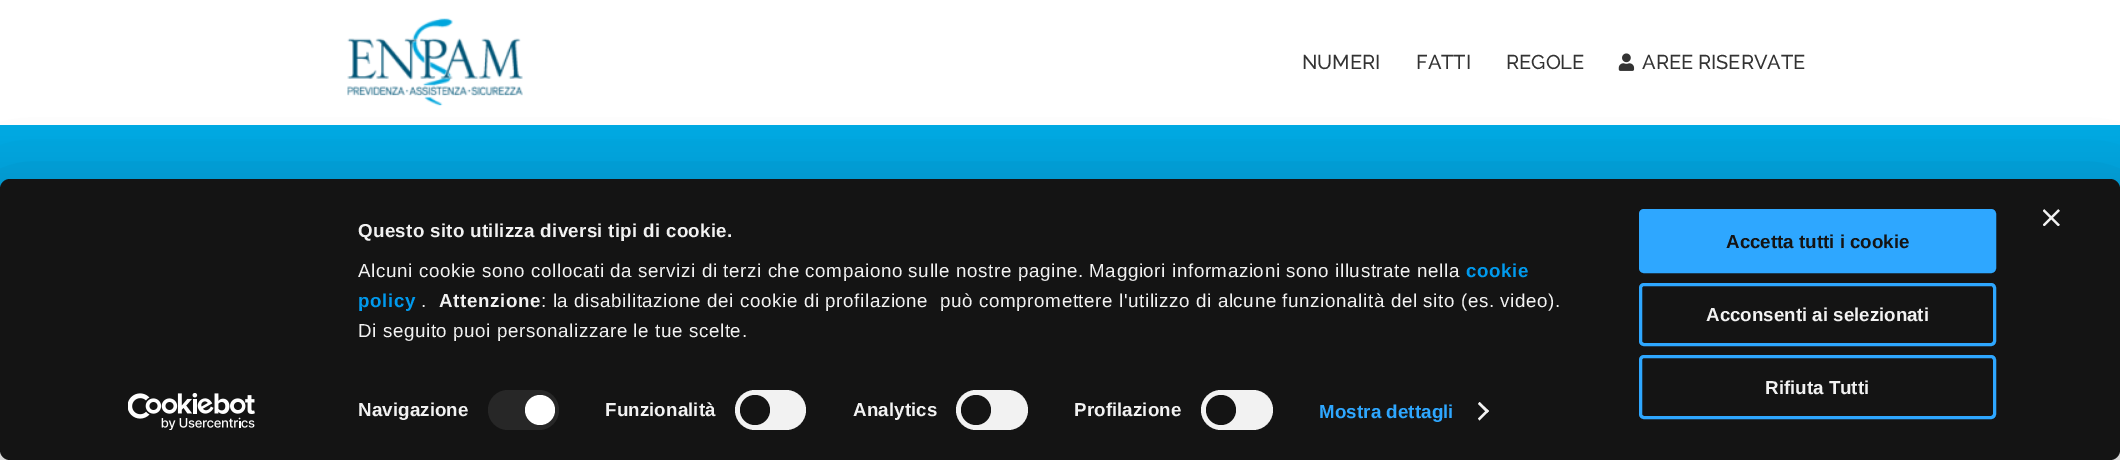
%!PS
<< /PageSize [2120 460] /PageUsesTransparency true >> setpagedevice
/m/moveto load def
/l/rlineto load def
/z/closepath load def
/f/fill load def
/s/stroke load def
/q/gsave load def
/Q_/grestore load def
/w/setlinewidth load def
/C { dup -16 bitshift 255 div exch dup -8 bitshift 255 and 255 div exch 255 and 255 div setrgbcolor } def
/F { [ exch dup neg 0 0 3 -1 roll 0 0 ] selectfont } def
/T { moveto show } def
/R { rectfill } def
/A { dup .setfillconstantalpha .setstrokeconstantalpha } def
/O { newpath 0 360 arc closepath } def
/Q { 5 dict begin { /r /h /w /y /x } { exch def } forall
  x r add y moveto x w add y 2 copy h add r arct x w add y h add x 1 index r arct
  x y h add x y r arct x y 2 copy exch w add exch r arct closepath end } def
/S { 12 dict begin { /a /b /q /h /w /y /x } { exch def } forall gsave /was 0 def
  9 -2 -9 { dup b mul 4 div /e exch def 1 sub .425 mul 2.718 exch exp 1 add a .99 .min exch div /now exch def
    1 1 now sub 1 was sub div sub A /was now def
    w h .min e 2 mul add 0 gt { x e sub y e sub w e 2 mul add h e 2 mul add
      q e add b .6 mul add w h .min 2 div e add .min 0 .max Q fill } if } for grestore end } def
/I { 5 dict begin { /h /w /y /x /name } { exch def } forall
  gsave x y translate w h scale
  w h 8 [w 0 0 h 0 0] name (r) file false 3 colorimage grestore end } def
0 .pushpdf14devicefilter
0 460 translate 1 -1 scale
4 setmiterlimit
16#FFFFFF C
0 0 2120 460 R
(1.rgb) 347 18 176 88 I
/Raleway-Medium 20 F
16#333333 C
(NUMERI) 1302 69 T
(FATTI) 1416 69 T
(REGOLE) 1506 69 T
(2.rgb) 1618 53 17 18 I
(AREE RISERVATE) 1642 69 T
q 0 125 m 2120 0 l 0 64 l -2120 0 l z clip newpath
<< /ShadingType 2 /ColorSpace /DeviceRGB /Coords [1060 350 1060 125] /Extend [true true] /Function << /FunctionType 3 /Domain [0 1] /Functions [<< /FunctionType 2 /Domain [0 1] /C0 [.043 .506 .737] /C1 [.043 .506 .737] /N 1 >> << /FunctionType 2 /Domain [0 1] /C0 [.043 .506 .737] /C1 [0 .671 .898] /N 1 >>] /Bounds [.02] /Encode [0 1 0 1] >> >> shfill Q_
16#000000 C
0 216 2120 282 10 44 .3 S
16#141414 C
0 179 2120 281 10 Q f
(3.rgb) 2043 209 17 17 I
/LiberationSans-Bold 18.75 F
16#F2F2F2 C
358 237 m .3 0 (Questo sito utilizza diversi tipi di cookie.) ashow
/LiberationSans-Regular 18.75 F
358 277 m .62 0 (Alcuni cookie sono collocati da servizi di terzi che compaiono sulle nostre pagine. Maggiori informazioni sono illustrate nella) ashow
/LiberationSans-Bold 18.75 F
16#009AEE C
1466 277 m .62 0 (cookie) ashow
358 307 m .62 0 (policy) ashow
/LiberationSans-Regular 18.75 F
16#F2F2F2 C
421 307 m .62 0 (.) ashow
/LiberationSans-Bold 18.75 F
439 307 m .62 0 (Attenzione) ashow
/LiberationSans-Regular 18.75 F
541 307 m .62 0 (: la disabilitazione dei cookie di profilazione  può compromettere l'utilizzo di alcune funzionalità del sito \(es. video\).) ashow
358 337 m .62 0 (Di seguito puoi personalizzare le tue scelte.) ashow
/LiberationSans-Bold 18.75 F
358 416 m .1 0 (Navigazione) ashow
16#272727 C
488 390 71 40 20 Q f
16#FFFFFF C
540 410 15 O f
16#F2F2F2 C
605 416 m .1 0 (Funzionalità) ashow
735 390 71 40 20 Q f
16#141414 C
755 410 15 O f
16#F2F2F2 C
853 416 m .1 0 (Analytics) ashow
956 390 72 40 20 Q f
16#141414 C
976 410 15 O f
16#F2F2F2 C
1074 416 m .1 0 (Profilazione) ashow
1201 390 72 40 20 Q f
16#141414 C
1221 410 15 O f
16#2EA7FF C
1319 418 m .1 0 (Mostra dettagli) ashow
16#F2F2F2 C
1479.5 402 m 9.5 9 l -2 2 l -9 -9 l z f
1487 409.5 m 2 1.5 l -9.5 9.5 l -1.5 -2 l z f
16#2EA7FF C
1640.5 210.5 354 61 3.5 Q q f Q_
3 w
s
16#141414 C
(Accetta tutti i cookie) 1726 248 T
16#2EA7FF C
1640.5 284.5 354 60 3.5 Q s
16#F2F2F2 C
(Acconsenti ai selezionati) 1706 321 T
16#2EA7FF C
1640.5 356.5 354 61 3.5 Q s
16#F2F2F2 C
(Rifiuta Tutti) 1765 394 T
(4.rgb) 128 393 127 37 I
.poppdf14devicefilter showpage
